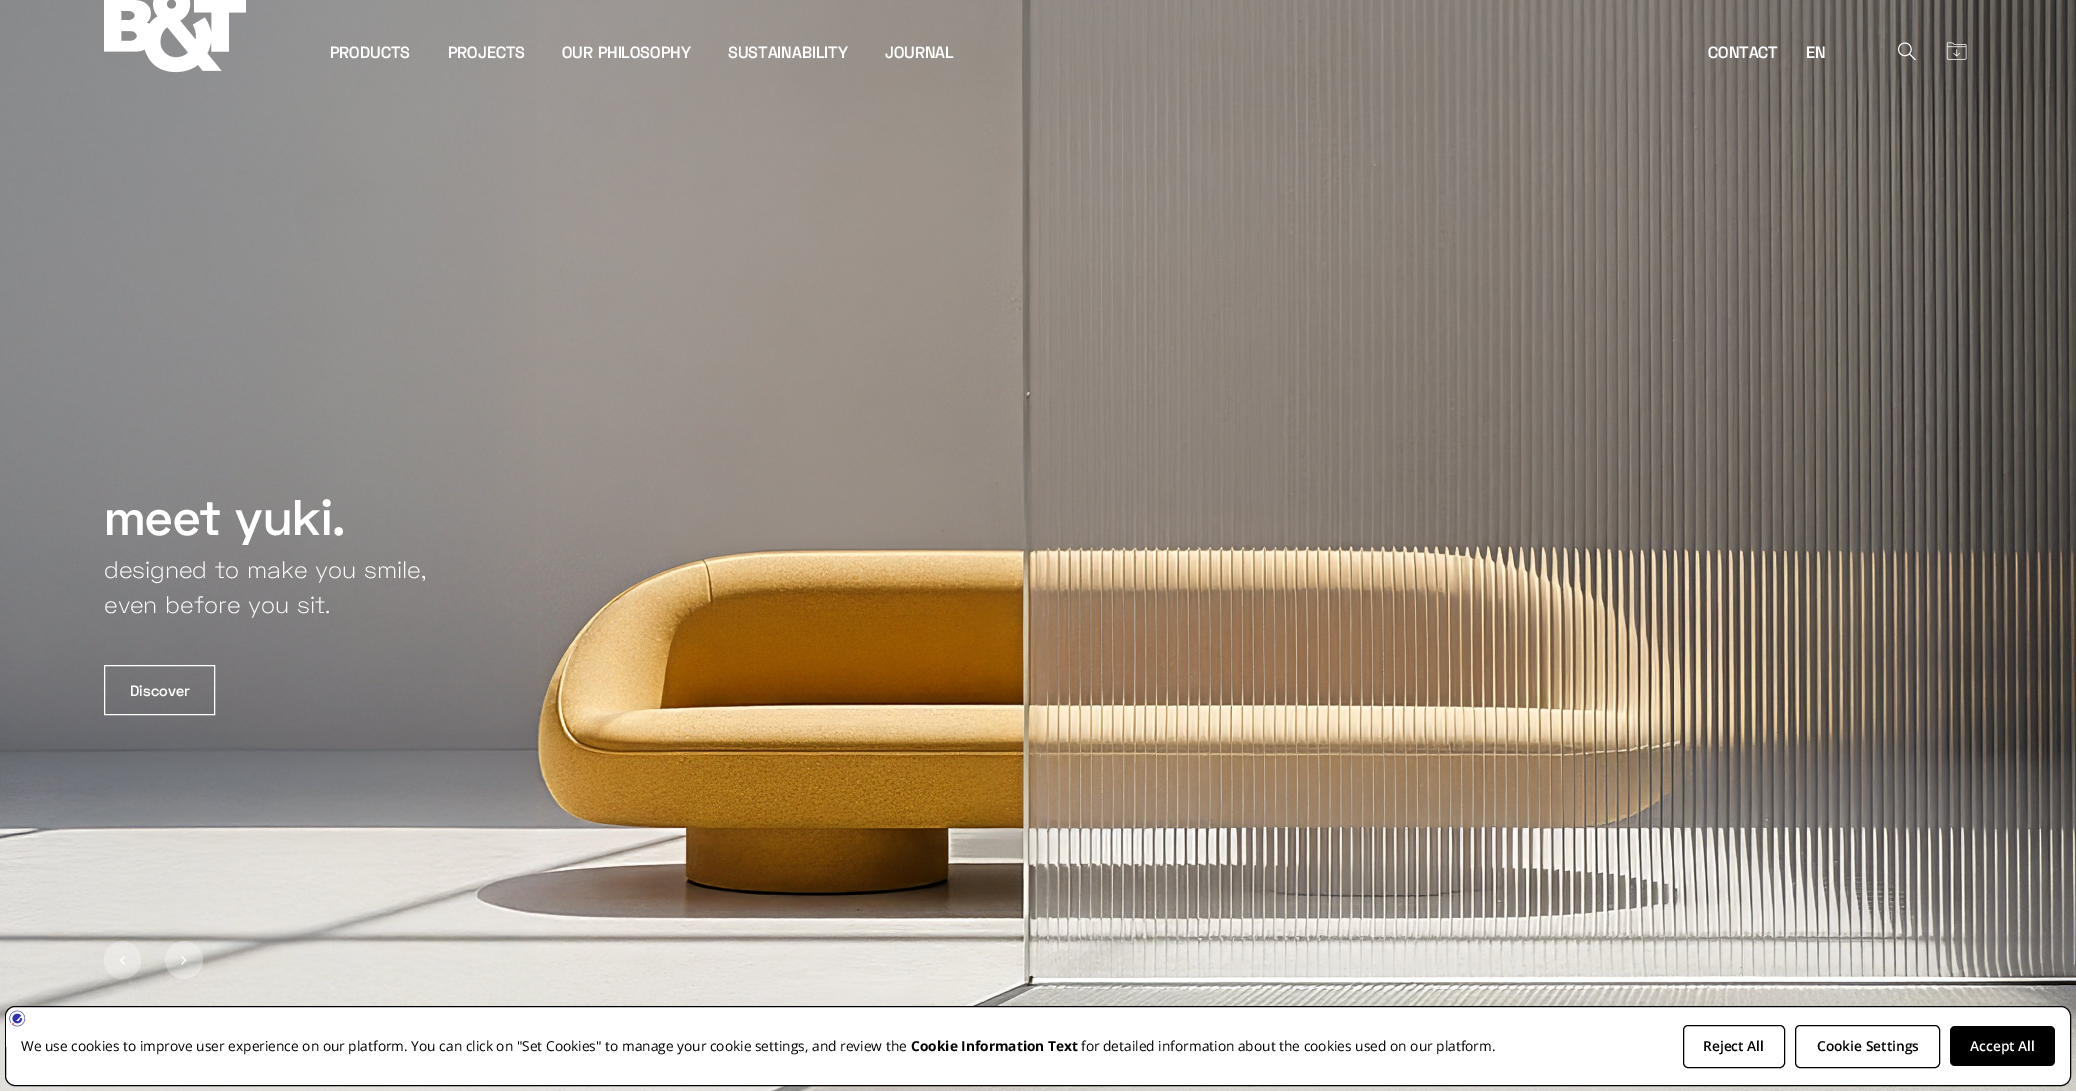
%!PS
<< /PageSize [2076 1091] /PageUsesTransparency true >> setpagedevice
/m/moveto load def
/l/rlineto load def
/c/rcurveto load def
/z/closepath load def
/f/fill load def
/s/stroke load def
/q/gsave load def
/Q_/grestore load def
/C { dup -16 bitshift 255 div exch dup -8 bitshift 255 and 255 div exch 255 and 255 div setrgbcolor } def
/F { [ exch dup neg 0 0 3 -1 roll 0 0 ] selectfont } def
/T { moveto show } def
/R { rectfill } def
/A { dup .setfillconstantalpha .setstrokeconstantalpha } def
/O { newpath 0 360 arc closepath } def
/Q { 5 dict begin { /r /h /w /y /x } { exch def } forall
  x r add y moveto x w add y 2 copy h add r arct x w add y h add x 1 index r arct
  x y h add x y r arct x y 2 copy exch w add exch r arct closepath end } def
/I { 5 dict begin { /h /w /y /x /name } { exch def } forall
  gsave x y translate w h scale
  w h 8 [w 0 0 h 0 0] name (r) file false 3 colorimage grestore end } def
0 .pushpdf14devicefilter
0 1091 translate 1 -1 scale
4 setmiterlimit
16#FFFFFF C
0 0 2076 1091 R
(4.rgb) 0 0 2076 1091 I
(1.rgb) 104 0 142 73 I
/SpaceGrotesk-SemiBold 16.25 F
(PRODUCTS) 330 58 T
(PROJECTS) 448 58 T
(OUR PHILOSOPHY) 562 58 T
(SUSTAINABILITY) 728 58 T
(JOURNAL) 885 58 T
(CONTACT) 1708 58 T
(EN) 1806 58 T
(2.rgb) 1897 42 19 19 I
(3.rgb) 1946 42 21 18 I
/SpaceGrotesk-SemiBold 50 F
(meet yuki.) 104 535 T
/SpaceGrotesk-Light 23.75 F
(designed to make you smile,) 104 578 T
(even before you sit.) 104 613 T
104.5 665.5 110 49 rectstroke
/SpaceGrotesk-SemiBold 15 F
(Discover) 130 696 T
0.3 A
104 941 37 38 18.5 Q f
1 A
(5.rgb) 120 956 5 9 I
0.3 A
184 960 19 O f
1 A
(6.rgb) 181 956 6 9 I
5.5 1006.5 2065 79 9.5 Q q f Q_
16#000000 C
s
/OpenSans-Regular 13.75 F
(We use cookies to improve user experience on our platform. You can click on "Set Cookies" to manage your cookie settings, and review the) 21 1051 T
16#FFFFFF C
16 1008 m 29 0 l -39 39 l 0 -29 l 0 -5.5 4.5 -10 10 -10 c z f
(7.rgb) 9 1010 17 17 I
/OpenSans-Bold 13.75 F
16#000000 C
(Cookie Information Text) 911 1051 T
/OpenSans-Regular 13.75 F
(for detailed information about the cookies used on our platform.) 1081 1051 T
1683.5 1025.5 101 42 4.5 Q s
/OpenSans-SemiBold 13.75 F
(Reject All) 1703 1051 T
1795.5 1025.5 144 42 4.5 Q s
(Cookie Settings) 1817 1051 T
1950 1026 105 40 5 Q f
16#FFFFFF C
(Accept All) 1970 1051 T
.poppdf14devicefilter showpage
